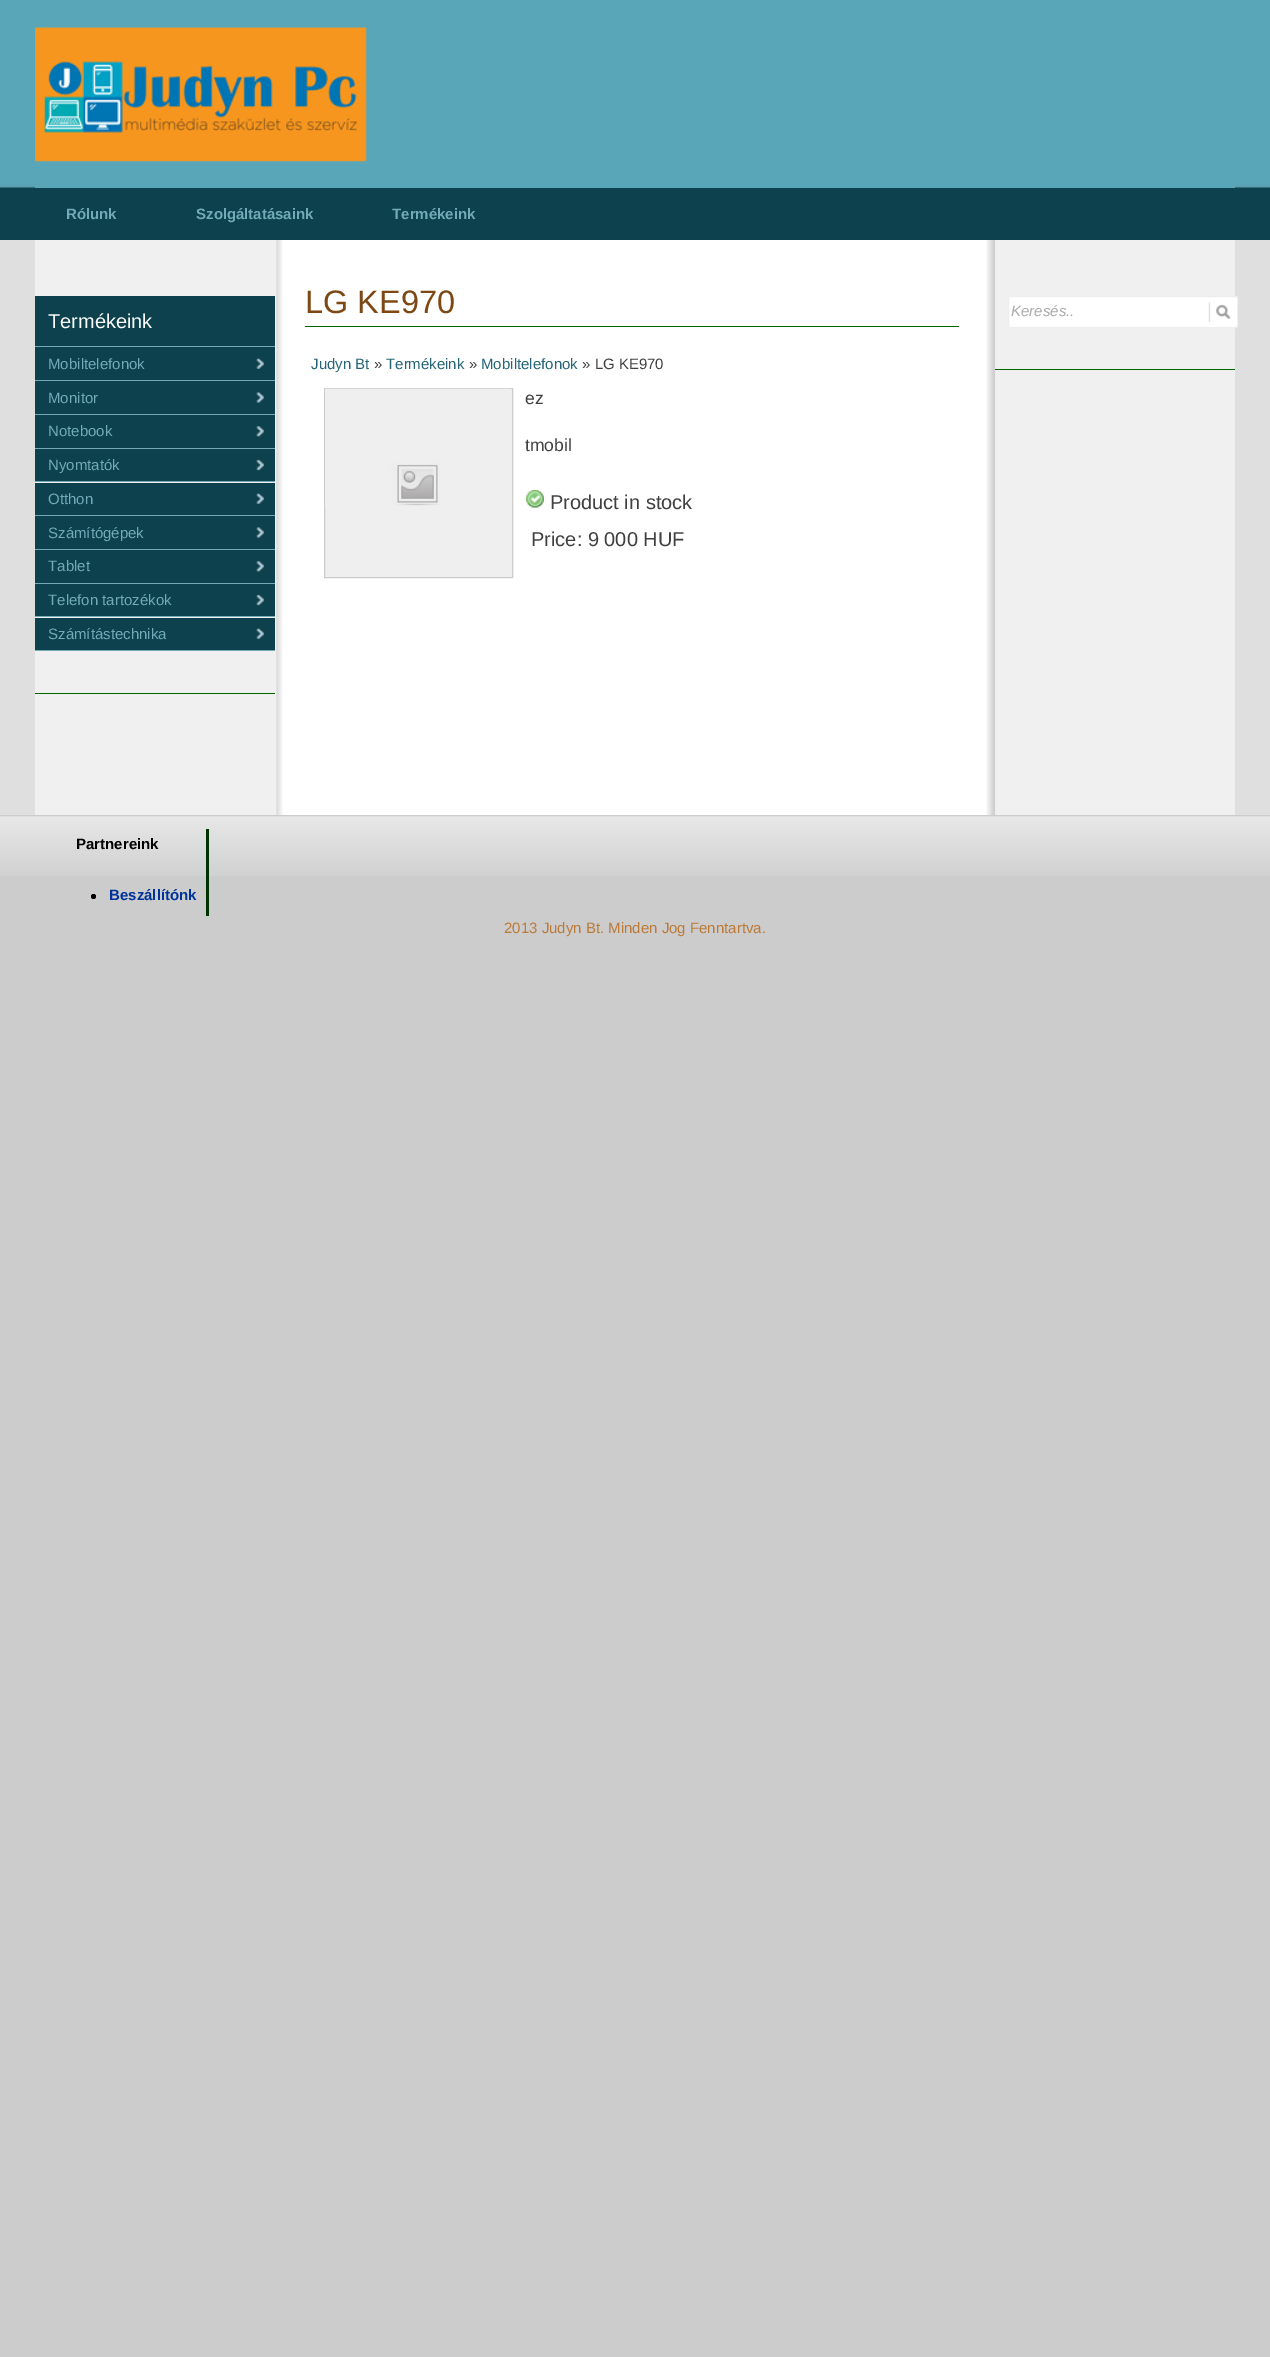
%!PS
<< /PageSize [1270 2357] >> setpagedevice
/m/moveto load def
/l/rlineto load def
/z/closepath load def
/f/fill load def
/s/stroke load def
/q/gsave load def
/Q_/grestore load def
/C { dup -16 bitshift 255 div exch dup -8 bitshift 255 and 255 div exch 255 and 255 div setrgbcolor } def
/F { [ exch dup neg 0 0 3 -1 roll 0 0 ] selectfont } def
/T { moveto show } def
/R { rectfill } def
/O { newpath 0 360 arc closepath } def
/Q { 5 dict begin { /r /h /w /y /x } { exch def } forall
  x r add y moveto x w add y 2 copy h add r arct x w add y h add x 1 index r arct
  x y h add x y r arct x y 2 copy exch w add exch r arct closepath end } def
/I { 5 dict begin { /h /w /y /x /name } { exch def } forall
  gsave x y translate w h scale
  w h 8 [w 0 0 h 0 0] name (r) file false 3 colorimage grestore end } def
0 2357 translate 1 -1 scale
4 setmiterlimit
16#CCCCCC C
0 0 1270 2357 R
(1.rgb) 0 0 1270 240 I
16#59A6B8 C
35 185 1200 3 R
(2.rgb) 35 27 332 135 I
/LiberationSans-Bold 15 F
16#72AAB8 C
(Rólunk) 66 219 T
(Szolgáltatásaink) 196 219 T
(Termékeink) 392 219 T
16#DFDFDF C
0 240 1270 575 R
(3.rgb) 35 240 1200 575 I
16#006600 C
305 326 654 1 R
/LiberationSans-Regular 32.5 F
16#7D4814 C
(LG KE970) 305 313 T
/LiberationSans-Regular 15 F
16#256575 C
(Judyn Bt) 311 369 T
16#404040 C
(») 374 369 T
16#256575 C
(Termékeink) 386 369 T
16#404040 C
(») 469 369 T
16#256575 C
(Mobiltelefonok) 481 369 T
16#404040 C
(» LG KE970) 582 369 T
16#EFEFEF C
324.5 388.5 m 188 0 l 0 189 l -188 0 l z q f Q_
16#CCCCCC C
s
(4.rgb) 325 388 186 118 I
/LiberationSans-Regular 17.5 F
16#404040 C
(ez) 525 404 T
(tmobil) 525 451 T
(5.rgb) 526 489 18 19 I
/LiberationSans-Regular 20 F
(Product in stock) 550 509 T
(Price: 9 000 HUF) 531 546 T
16#006600 C
995 369 240 1 R
16#FFFFFF C
1008.5 296.5 229 31 2 Q q f Q_
16#EEEEEE C
s
/LiberationSans-Italic 15 F
16#AAAAAA C
(Keresés..) 1011 316 T
(6.rgb) 1208 302 23 20 I
16#006600 C
35 693 240 1 R
16#0D414D C
35 296 240 84 R
16#72AAB8 C
35 346 240 1 R
/LiberationSans-Regular 20 F
16#FFFFFF C
(Termékeink) 48 328 T
16#72AAB8 C
35 380 240 1 R
(7.rgb) 256 358 8 11 I
/LiberationSans-Regular 15 F
(Mobiltelefonok) 48 369 T
35 414 240 1 R
16#0D414D C
35 381 240 33 R
(8.rgb) 256 392 8 11 I
16#72AAB8 C
(Monitor) 48 403 T
35 448 240 1 R
16#0D414D C
35 415 240 33 R
(9.rgb) 256 426 8 11 I
16#72AAB8 C
(Notebook) 48 436 T
35 481 240 1 R
16#0D414D C
35 449 240 32 R
(10.rgb) 256 459 8 12 I
16#72AAB8 C
(Nyomtatók) 48 470 T
35 515 240 1 R
16#0D414D C
35 483 240 32 R
(7.rgb) 256 493 8 11 I
16#72AAB8 C
(Otthon) 48 504 T
35 549 240 1 R
16#0D414D C
35 516 240 33 R
(8.rgb) 256 527 8 11 I
16#72AAB8 C
(Számítógépek) 48 538 T
35 583 240 1 R
16#0D414D C
35 550 240 33 R
(9.rgb) 256 561 8 11 I
16#72AAB8 C
(Tablet) 48 571 T
35 616 240 1 R
16#0D414D C
35 584 240 32 R
(10.rgb) 256 594 8 12 I
16#72AAB8 C
(Telefon tartozékok) 48 605 T
35 650 240 1 R
16#0D414D C
35 618 240 32 R
(7.rgb) 256 628 8 11 I
16#72AAB8 C
(Számítástechnika) 48 639 T
(11.rgb) 0 816 1270 60 I
16#003300 C
206 829 3 87 R
/LiberationSans-Bold 15 F
16#000000 C
(Partnereink) 76 849 T
93.5 896.5 2.5 O f
16#003399 C
(Beszállítónk) 109 900 T
/LiberationSans-Regular 15 F
16#BC7A39 C
(2013 Judyn Bt. Minden Jog Fenntartva.) 504 933 T
showpage
